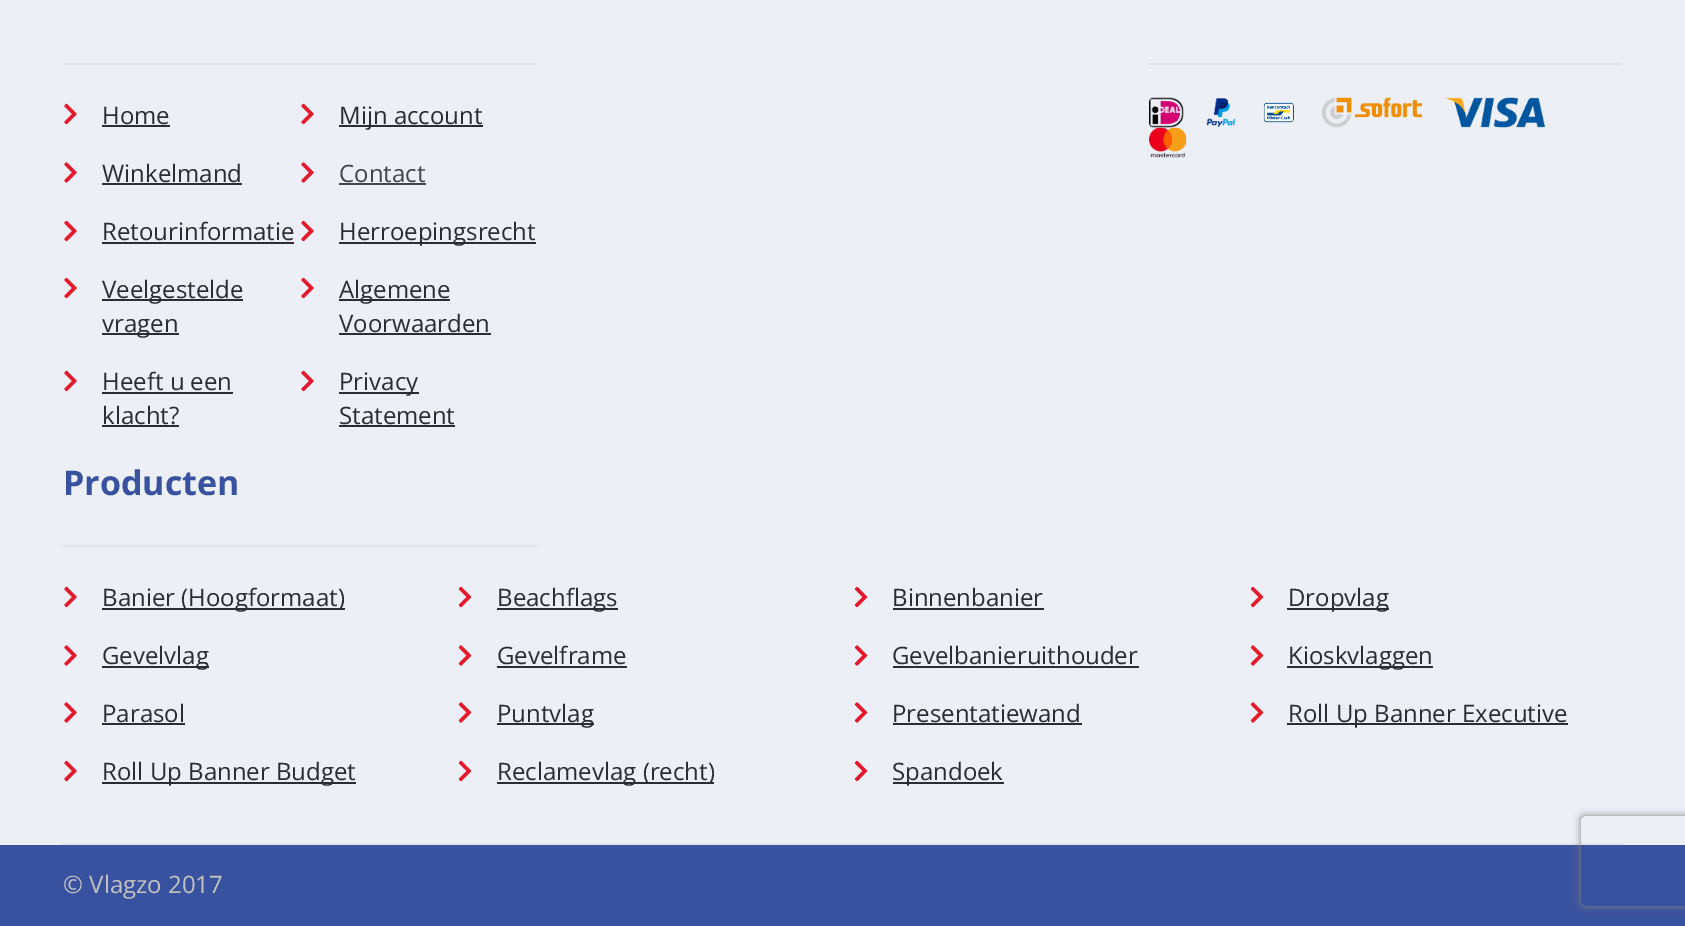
%!PS
<< /PageSize [1685 926] /PageUsesTransparency true >> setpagedevice
/m/moveto load def
/l/rlineto load def
/c/rcurveto load def
/z/closepath load def
/q/gsave load def
/Q_/grestore load def
/C { dup -16 bitshift 255 div exch dup -8 bitshift 255 and 255 div exch 255 and 255 div setrgbcolor } def
/F { [ exch dup neg 0 0 3 -1 roll 0 0 ] selectfont } def
/T { moveto show } def
/R { rectfill } def
/A { dup .setfillconstantalpha .setstrokeconstantalpha } def
/Q { 5 dict begin { /r /h /w /y /x } { exch def } forall
  x r add y moveto x w add y 2 copy h add r arct x w add y h add x 1 index r arct
  x y h add x y r arct x y 2 copy exch w add exch r arct closepath end } def
/S { 12 dict begin { /a /b /q /h /w /y /x } { exch def } forall gsave /was 0 def
  9 -2 -9 { dup b mul 4 div /e exch def 1 sub .425 mul 2.718 exch exp 1 add a .99 .min exch div /now exch def
    1 1 now sub 1 was sub div sub A /was now def
    w h .min e 2 mul add 0 gt { x e sub y e sub w e 2 mul add h e 2 mul add
      q e add b .6 mul add w h .min 2 div e add .min 0 .max Q fill } if } for grestore end } def
/I { 5 dict begin { /h /w /y /x /name } { exch def } forall
  gsave x y translate w h scale
  w h 8 [w 0 0 h 0 0] name (r) file false 3 colorimage grestore end } def
0 .pushpdf14devicefilter
0 926 translate 1 -1 scale
4 setmiterlimit
16#ECEFF6 C
0 0 1685 926 R
16#E0E3EA C
63 843 1560 2 R
1149 63 474 2 R
(1.rgb) 1149 97 35 31 I
(2.rgb) 1206 98 30 29 I
(3.rgb) 1263 102 31 21 I
(4.rgb) 1321 97 101 31 I
(5.rgb) 1446 97 99 31 I
(6.rgb) 1149 127 38 31 I
63 63 474 2 R
(7.rgb) 64 103 13 22 I
/OpenSans-Regular 24 F
16#2C2D33 C
(Home) 102 124 T
102 125 68 2 R
(7.rgb) 301 103 13 22 I
339 125 144 2 R
(Mijn account) 339 124 T
(8.rgb) 64 162 13 21 I
(Winkelmand) 102 182 T
102 183 140 2 R
(8.rgb) 301 162 13 21 I
16#43454B C
(Contact) 339 182 T
339 183 87 2 R
(7.rgb) 64 220 13 22 I
16#2C2D33 C
(Retourinformatie) 102 240 T
102 242 192 2 R
(7.rgb) 301 220 13 22 I
339 242 197 2 R
(Herroepingsrecht) 339 240 T
(7.rgb) 64 277 13 22 I
102 299 141 2 R
(Veelgestelde) 102 298 T
102 333 77 2 R
(vragen) 102 332 T
(7.rgb) 301 277 13 22 I
339 299 111 2 R
(Algemene) 339 298 T
(Voorwaarden) 339 332 T
339 333 152 2 R
(7.rgb) 64 370 13 22 I
(Heeft u een) 102 390 T
102 392 131 2 R
(klacht?) 102 424 T
102 425 77 2 R
(7.rgb) 301 370 13 22 I
339 392 80 2 R
(Privacy) 339 390 T
(Statement) 339 424 T
339 425 116 2 R
16#E0E3EA C
63 545 474 2 R
/OpenSans-Bold 34 F
16#3952A0 C
(Producten) 63 495 T
(7.rgb) 64 586 13 22 I
16#2C2D33 C
102 608 243 2 R
/OpenSans-Regular 24 F
(Banier \(Hoogformaat\)) 102 606 T
(9.rgb) 458 586 14 22 I
497 608 121 2 R
(Beachflags) 497 606 T
(9.rgb) 854 586 14 22 I
(Binnenbanier) 892 606 T
893 608 151 2 R
(9.rgb) 1250 586 14 22 I
1287 608 102 2 R
(Dropvlag) 1288 606 T
(8.rgb) 64 645 13 21 I
102 666 107 2 R
(Gevelvlag) 102 664 T
(10.rgb) 458 645 14 21 I
(Gevelframe) 497 664 T
497 666 130 2 R
(10.rgb) 854 645 14 21 I
(Gevelbanieruithouder) 892 664 T
893 666 246 2 R
(10.rgb) 1250 645 14 21 I
1287 666 146 2 R
(Kioskvlaggen) 1288 664 T
(8.rgb) 64 702 13 21 I
(Parasol) 102 722 T
102 723 83 2 R
(10.rgb) 458 702 14 21 I
497 723 97 2 R
(Puntvlag) 497 722 T
(10.rgb) 854 702 14 21 I
(Presentatiewand) 892 722 T
893 723 189 2 R
(10.rgb) 1250 702 14 21 I
1287 723 281 2 R
(Roll Up Banner Executive) 1288 722 T
(7.rgb) 64 760 13 22 I
102 782 254 2 R
(Roll Up Banner Budget) 102 780 T
(9.rgb) 458 760 14 22 I
497 782 217 2 R
(Reclamevlag \(recht\)) 497 780 T
(9.rgb) 854 760 14 22 I
893 782 111 2 R
(Spandoek) 892 780 T
16#3952A0 C
0 845 1685 81 R
16#C2C1C0 C
(© Vlagzo 2017) 63 893 T
q
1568 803 m 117 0 l 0 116 l -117 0 l z 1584 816 m 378 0 l 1.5 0 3 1.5 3 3 c 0 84 l 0 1.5 -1.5 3 -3 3 c -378 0 l -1.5 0 -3 -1.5 -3 -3 c 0 -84 l 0 -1.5 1.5 -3 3 -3 c z eoclip newpath
16#808080 C
1581 816 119 90 3 4 1 S
Q_
.poppdf14devicefilter showpage
